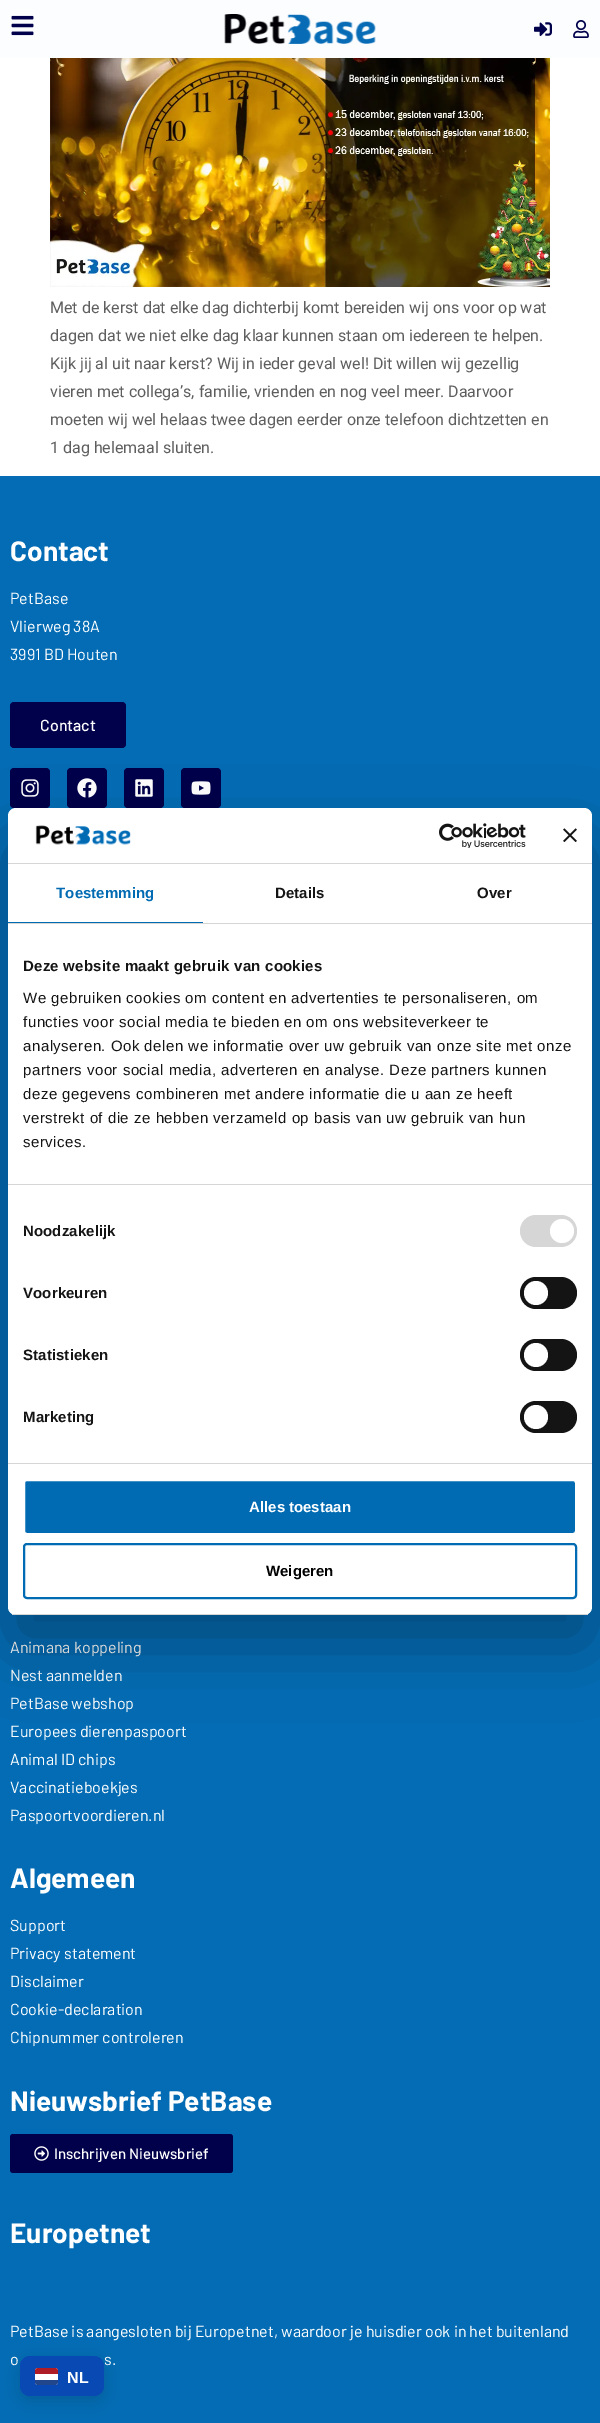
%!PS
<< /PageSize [600 2423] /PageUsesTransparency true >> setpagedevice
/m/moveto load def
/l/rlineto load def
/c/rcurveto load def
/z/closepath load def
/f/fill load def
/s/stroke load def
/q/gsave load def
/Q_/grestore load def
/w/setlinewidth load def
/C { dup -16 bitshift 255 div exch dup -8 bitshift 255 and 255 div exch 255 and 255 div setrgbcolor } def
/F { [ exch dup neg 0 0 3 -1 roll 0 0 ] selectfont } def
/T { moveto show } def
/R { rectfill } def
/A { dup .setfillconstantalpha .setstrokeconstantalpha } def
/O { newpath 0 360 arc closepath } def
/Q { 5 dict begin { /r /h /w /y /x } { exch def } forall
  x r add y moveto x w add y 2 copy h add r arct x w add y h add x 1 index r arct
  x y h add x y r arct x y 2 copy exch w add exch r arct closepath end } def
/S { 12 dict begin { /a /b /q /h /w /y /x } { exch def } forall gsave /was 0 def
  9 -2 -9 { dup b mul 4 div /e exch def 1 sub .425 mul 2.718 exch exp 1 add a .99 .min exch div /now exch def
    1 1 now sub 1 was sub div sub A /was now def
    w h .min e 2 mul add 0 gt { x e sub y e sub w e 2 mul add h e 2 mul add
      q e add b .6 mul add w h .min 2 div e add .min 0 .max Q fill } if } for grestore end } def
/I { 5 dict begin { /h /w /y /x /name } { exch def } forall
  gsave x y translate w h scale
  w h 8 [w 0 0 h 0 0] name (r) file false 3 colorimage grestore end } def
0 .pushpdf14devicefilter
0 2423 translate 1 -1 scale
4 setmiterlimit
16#FFFFFF C
0 0 600 2423 R
16#FCFDFF C
0 0 600 58 R
(1.rgb) 11 15 23 21 I
(2.rgb) 224 14 152 30 I
(3.rgb) 534 22 18 14 I
(4.rgb) 573 20 16 18 I
(5.rgb) 50 58 500 229 I
/Roboto-Regular 16 F
16#5E5E5E C
(Met de kerst dat elke dag dichterbij komt bereiden wij ons voor op wat) 50 313 T
(dagen dat we niet elke dag klaar kunnen staan om iedereen te helpen.) 50 341 T
(Kijk jij al uit naar kerst? Wij in ieder geval wel! Dit willen wij gezellig) 50 369 T
(vieren met collega’s, familie, vrienden en nog veel meer. Daarvoor) 50 397 T
(moeten wij wel helaas twee dagen eerder onze telefoon dichtzetten en) 50 425 T
(1 dag helemaal sluiten.) 50 453 T
16#046CB4 C
0 476 600 1947 R
/Barlow-Bold 28 F
16#FFFFFF C
(Contact) 10 561 T
/Barlow-Regular 16 F
(PetBase) 10 604 T
(Vlierweg 38A) 10 632 T
(3991 BD Houten) 10 660 T
16#00004B C
10 702 116 46 4 Q f
/Barlow-Medium 16 F
16#FFFFFF C
(Contact) 40 731 T
16#00004B C
10 768 40 40 4 Q f
(6.rgb) 21 779 18 18 I
67 768 40 40 4 Q f
(7.rgb) 77 778 20 20 I
124 768 40 40 4 Q f
(8.rgb) 135 779 18 18 I
181 768 40 40 4 Q f
(9.rgb) 191 781 20 14 I
/Barlow-Regular 16 F
16#FFFFFF C
(Animana koppeling) 10 1653 T
(Nest aanmelden) 10 1681 T
(PetBase webshop) 10 1709 T
(Europees dierenpaspoort) 10 1737 T
(Animal ID chips) 10 1765 T
(Vaccinatieboekjes) 10 1793 T
(Paspoortvoordieren.nl) 10 1821 T
/Barlow-Bold 28 F
(Algemeen) 10 1888 T
/Barlow-Regular 16 F
(Support) 10 1931 T
(Privacy statement) 10 1959 T
(Disclaimer) 10 1987 T
(Cookie-declaration) 10 2015 T
(Chipnummer controleren) 10 2043 T
/Barlow-Bold 28 F
(Nieuwsbrief PetBase) 10 2111 T
16#00004B C
10 2134 223 39 3 Q f
(10.rgb) 34 2146 15 15 I
/Barlow-Medium 15 F
16#FFFFFF C
(Inschrijven Nieuwsbrief) 54 2159 T
/Barlow-Bold 28 F
(Europetnet) 10 2243 T
/Barlow-Regular 16 F
(PetBase is aangesloten bij Europetnet, waardoor je huisdier ook in het buitenland) 10 2337 T
(o) 10 2365 T
(s.) 104 2365 T
16#000000 C
8 840 584 807 8 34 .3 S
16#FFFFFF C
8 808 584 807 8 Q f
16#D6D6D6 C
8 863 584 1 R
(11.rgb) 35 825 96 20 I
(12.rgb) 439 823 87 25 I
(13.rgb) 563 828 14 14 I
8 923 584 1 R
16#006AB2 C
8 922 195 1 R
/LiberationSans-Bold 15 F
56 898 m .1 0 (Toestemming) ashow
16#141414 C
275 898 m .1 0 (Details) ashow
477 898 m .1 0 (Over) ashow
16#D6D6D6 C
8 1184 584 1 R
16#141414 C
23 971 m .25 0 (Deze website maakt gebruik van cookies) ashow
/LiberationSans-Regular 15 F
23 1003 m .5 0 (We gebruiken cookies om content en advertenties te personaliseren, om) ashow
23 1027 m .5 0 (functies voor social media te bieden en om ons websiteverkeer te) ashow
23 1051 m .5 0 (analyseren. Ook delen we informatie over uw gebruik van onze site met onze) ashow
23 1075 m .5 0 (partners voor social media, adverteren en analyse. Deze partners kunnen) ashow
23 1099 m .5 0 (deze gegevens combineren met andere informatie die u aan ze heeft) ashow
23 1123 m .5 0 (verstrekt of die ze hebben verzameld op basis van uw gebruik van hun) ashow
23 1147 m .5 0 (services.) ashow
16#D6D6D6 C
8 1463 584 1 R
/LiberationSans-Bold 15 F
16#141414 C
23 1236 m .1 0 (Noodzakelijk) ashow
16#D6D6D6 C
520 1215 57 32 16 Q f
16#FFFFFF C
562 1231 12 O f
16#141414 C
23 1298 m .1 0 (Voorkeuren) ashow
520 1277 57 32 16 Q f
16#FFFFFF C
536 1293 12 O f
16#141414 C
23 1360 m .1 0 (Statistieken) ashow
520 1339 57 32 16 Q f
16#FFFFFF C
536 1355 12 O f
16#141414 C
23 1422 m .1 0 (Marketing) ashow
520 1401 57 32 16 Q f
16#FFFFFF C
536 1417 12 O f
q
8 808 584 807 8 Q clip newpath
16#D6D6D6 C
8 1614 584 1 R
Q_
16#006AB2 C
24 1480 552 54 3 Q q f Q_
16#FFFFFF C
2 w
s
(Alles toestaan) 249 1512 T
16#006AB2 C
24 1544 552 54 3 Q s
16#000000 C
(Weigeren) 266 1576 T
20 2361 84 40 10 7.5 .15 S
16#0949B3 C
20 2356 84 40 10 Q f
16#FFFFFF C
35 2368 23 17 3 Q f
16#21468B C
35 2380 m 23 0 l 0 2 l 0 1.5 -1.5 3 -3 3 c -17 0 l -1.5 0 -3 -1.5 -3 -3 c z f
16#AE1C28 C
38 2368 m 17 0 l 1.5 0 3 1.5 3 3 c 0 3 l -23 0 l 0 -3 l 0 -1.5 1.5 -3 3 -3 c z f
/LiberationSans-Bold 16 F
16#FFFFFF C
(NL) 67 2383 T
.poppdf14devicefilter showpage
